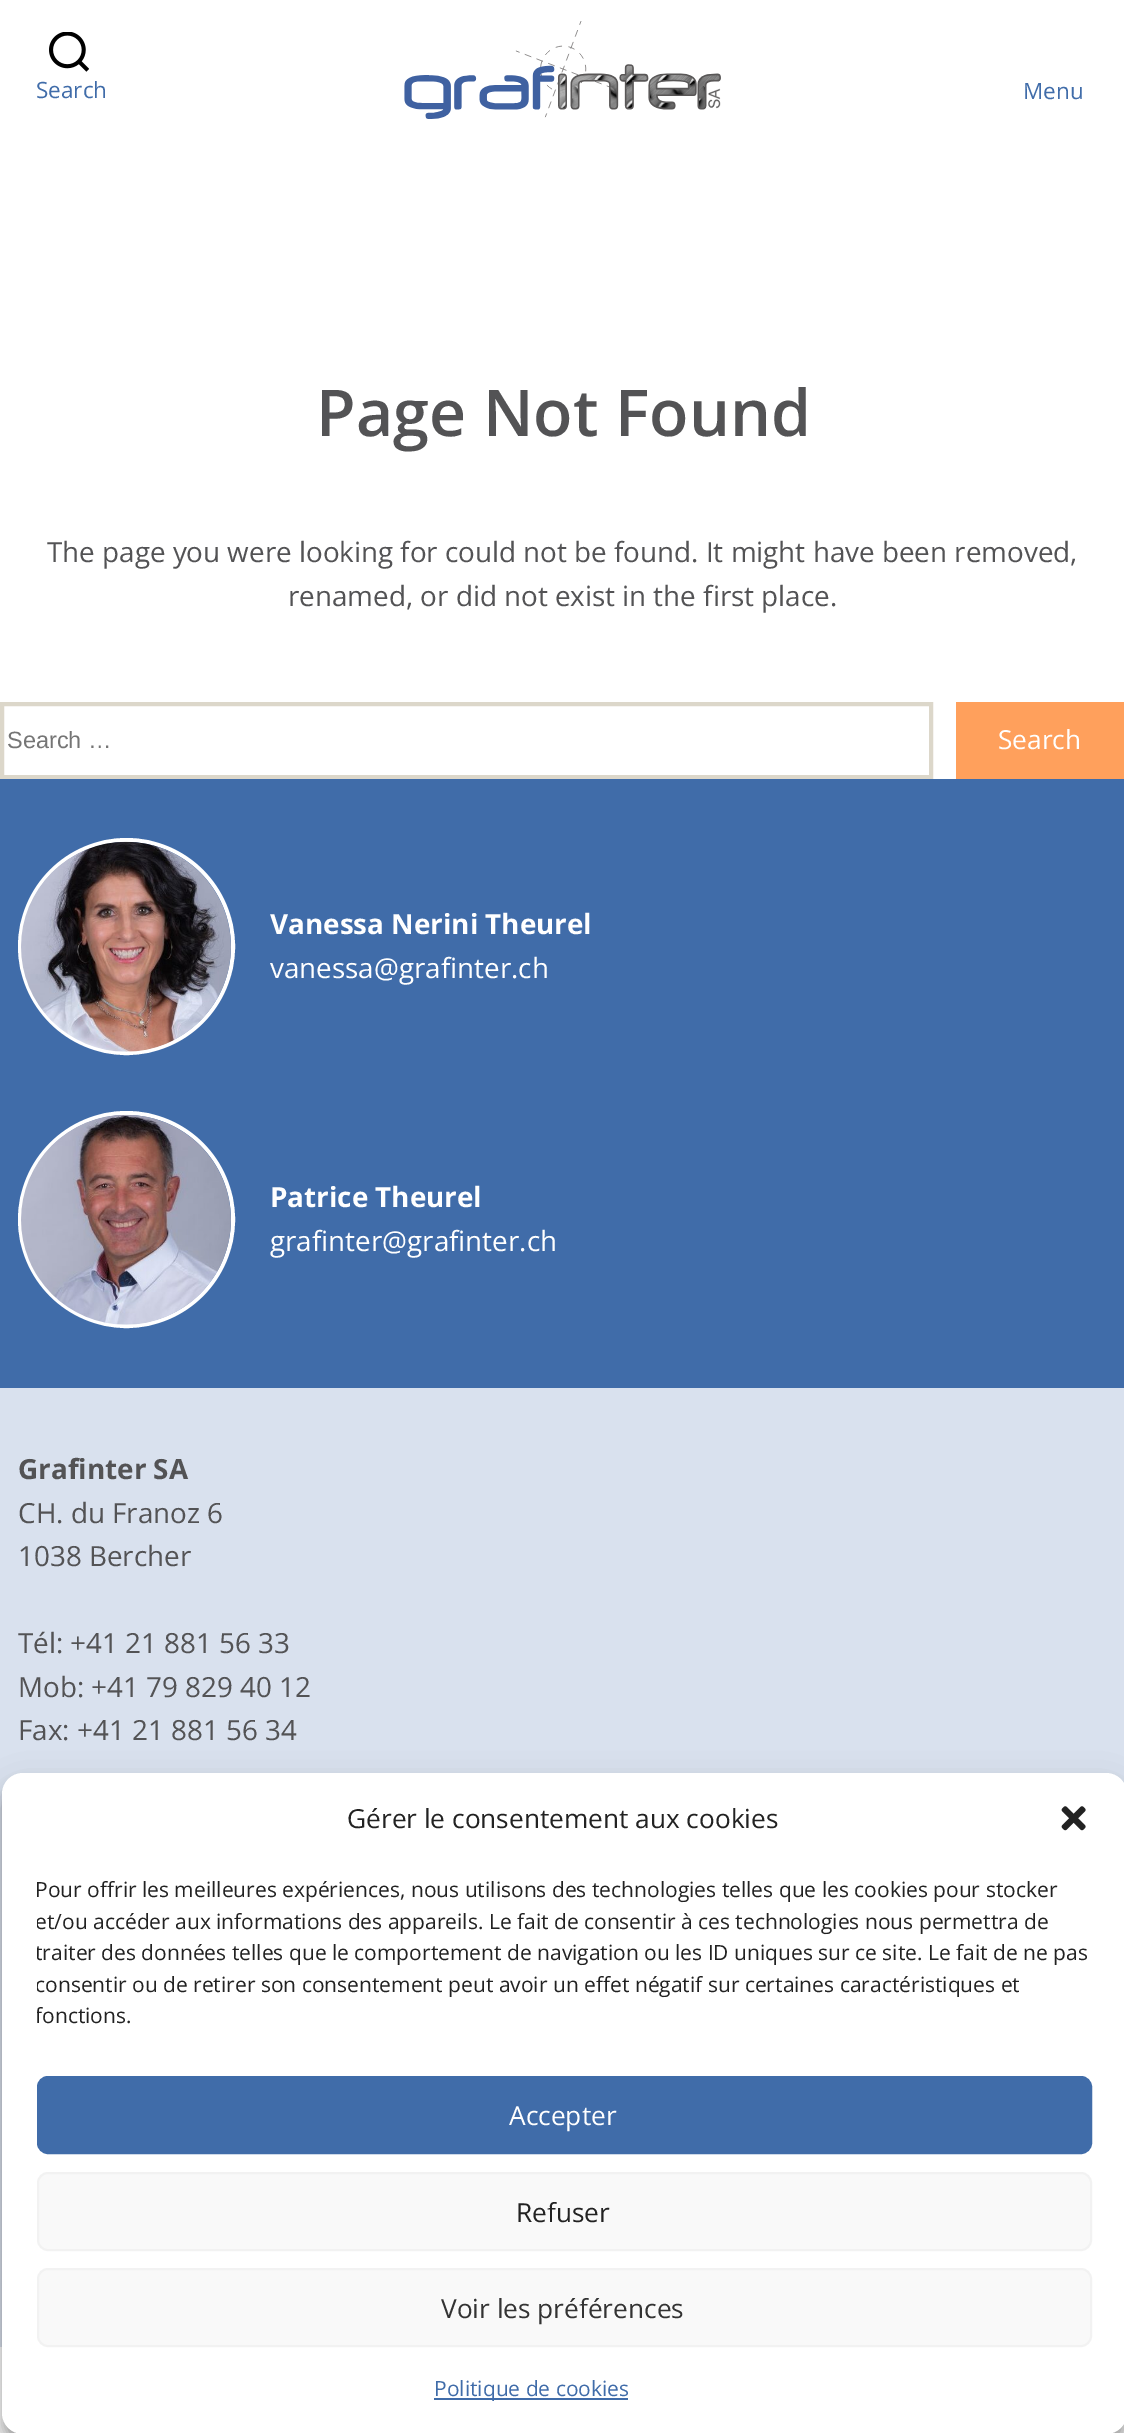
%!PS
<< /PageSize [1124 2433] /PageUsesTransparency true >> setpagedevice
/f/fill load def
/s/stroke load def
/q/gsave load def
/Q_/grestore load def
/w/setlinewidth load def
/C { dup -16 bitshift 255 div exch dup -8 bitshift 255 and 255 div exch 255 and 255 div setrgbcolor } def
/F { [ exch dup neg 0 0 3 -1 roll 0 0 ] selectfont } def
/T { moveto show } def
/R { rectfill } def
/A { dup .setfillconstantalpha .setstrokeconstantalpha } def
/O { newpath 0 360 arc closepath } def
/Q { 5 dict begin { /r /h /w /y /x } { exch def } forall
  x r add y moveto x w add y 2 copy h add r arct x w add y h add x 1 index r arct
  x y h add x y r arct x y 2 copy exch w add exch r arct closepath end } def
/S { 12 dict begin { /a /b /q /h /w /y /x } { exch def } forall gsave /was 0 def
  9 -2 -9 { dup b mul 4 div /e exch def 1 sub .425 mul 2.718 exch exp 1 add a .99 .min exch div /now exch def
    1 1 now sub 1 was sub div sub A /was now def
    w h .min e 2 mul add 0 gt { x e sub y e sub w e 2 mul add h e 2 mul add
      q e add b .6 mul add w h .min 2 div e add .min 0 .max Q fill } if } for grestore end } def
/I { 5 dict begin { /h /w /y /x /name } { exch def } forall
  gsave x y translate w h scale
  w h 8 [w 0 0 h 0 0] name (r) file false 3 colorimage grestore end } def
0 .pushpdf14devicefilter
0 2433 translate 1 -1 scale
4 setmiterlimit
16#FFFFFF C
0 0 1124 2433 R
(1.rgb) 49 32 40 40 I
/OpenSans-Regular 22.5 F
16#406CA9 C
(Search) 36 98 T
(2.rgb) 404 21 317 98 I
(Menu) 1023 99 T
/OpenSans-SemiBold 64.5 F
16#535355 C
(Page Not Found) 316 436 T
/OpenSans-Regular 27.8 F
(The page you were looking for could not be found. It might have been removed,) 47 562 T
(renamed, or did not exist in the first place.) 288 606 T
16#DCD7CA C
4 w
2 704 929 73 rectstroke
/LiberationSans-Regular 23.5 F
16#757575 C
(Search …) 7 748 T
16#FFA05C C
956 702 168 77 R
/OpenSans-Regular 26.25 F
16#FFFFFF C
(Search) 998 749 T
16#406CA9 C
0 779 1124 609 R
16#FFFFFF C
126.5 946.5 106.5 O s
(3.rgb) 21 841 210 211 I
/OpenSans-Bold 27.8 F
(Vanessa Nerini Theurel) 270 934 T
/OpenSans-Regular 27.8 F
(vanessa@grafinter.ch) 270 978 T
126.5 1219.5 106.5 O s
(4.rgb) 21 1114 210 211 I
/OpenSans-Bold 27.8 F
(Patrice Theurel) 270 1207 T
/OpenSans-Regular 27.8 F
(grafinter@grafinter.ch) 270 1251 T
16#D9E1EE C
0 1388 1124 959 R
/OpenSans-Bold 27.8 F
16#535355 C
(Grafinter SA) 18 1479 T
/OpenSans-Regular 27.8 F
(CH. du Franoz 6) 18 1523 T
(1038 Bercher) 18 1566 T
(Tél: +41 21 881 56 33) 18 1653 T
(Mob: +41 79 829 40 12) 18 1697 T
(Fax: +41 21 881 56 34) 18 1740 T
16#000000 C
2 1783 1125 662 21 5 .23 S
2 1790 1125 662 21 17.5 .19 S
16#FFFFFF C
2 1773 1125 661 21 Q f
/OpenSans-Regular 26.25 F
16#222222 C
(Gérer le consentement aux cookies) 347 1828 T
(5.rgb) 1061 1806 25 25 I
/OpenSans-Regular 21 F
(Pour offrir les meilleures expériences, nous utilisons des technologies telles que les cookies pour stocker) 35 1897 T
q
37 1874 1055 167 rectclip
(et/ou accéder aux informations des appareils. Le fait de consentir à ces technologies nous permettra de) 35 1929 T
(traiter des données telles que le comportement de navigation ou les ID uniques sur ce site. Le fait de ne pas) 35 1960 T
(consentir ou de retirer son consentement peut avoir un effet négatif sur certaines caractéristiques et) 35 1992 T
(fonctions.) 35 2023 T
Q_
16#406CA9 C
38 2077 1053 76 10 Q q f Q_
2 w
s
/OpenSans-Regular 26.25 F
16#FFFFFF C
(Accepter) 509 2125 T
16#F9F9F9 C
38 2173 1053 77 10 Q q f Q_
16#F2F2F2 C
s
16#222222 C
(Refuser) 516 2222 T
16#F9F9F9 C
38 2269 1053 77 10 Q q f Q_
16#F2F2F2 C
s
16#333333 C
(Voir les préférences) 441 2318 T
16#406CA9 C
434 2398 194 2 R
/OpenSans-Regular 21 F
(Politique de cookies) 434 2396 T
.poppdf14devicefilter showpage
